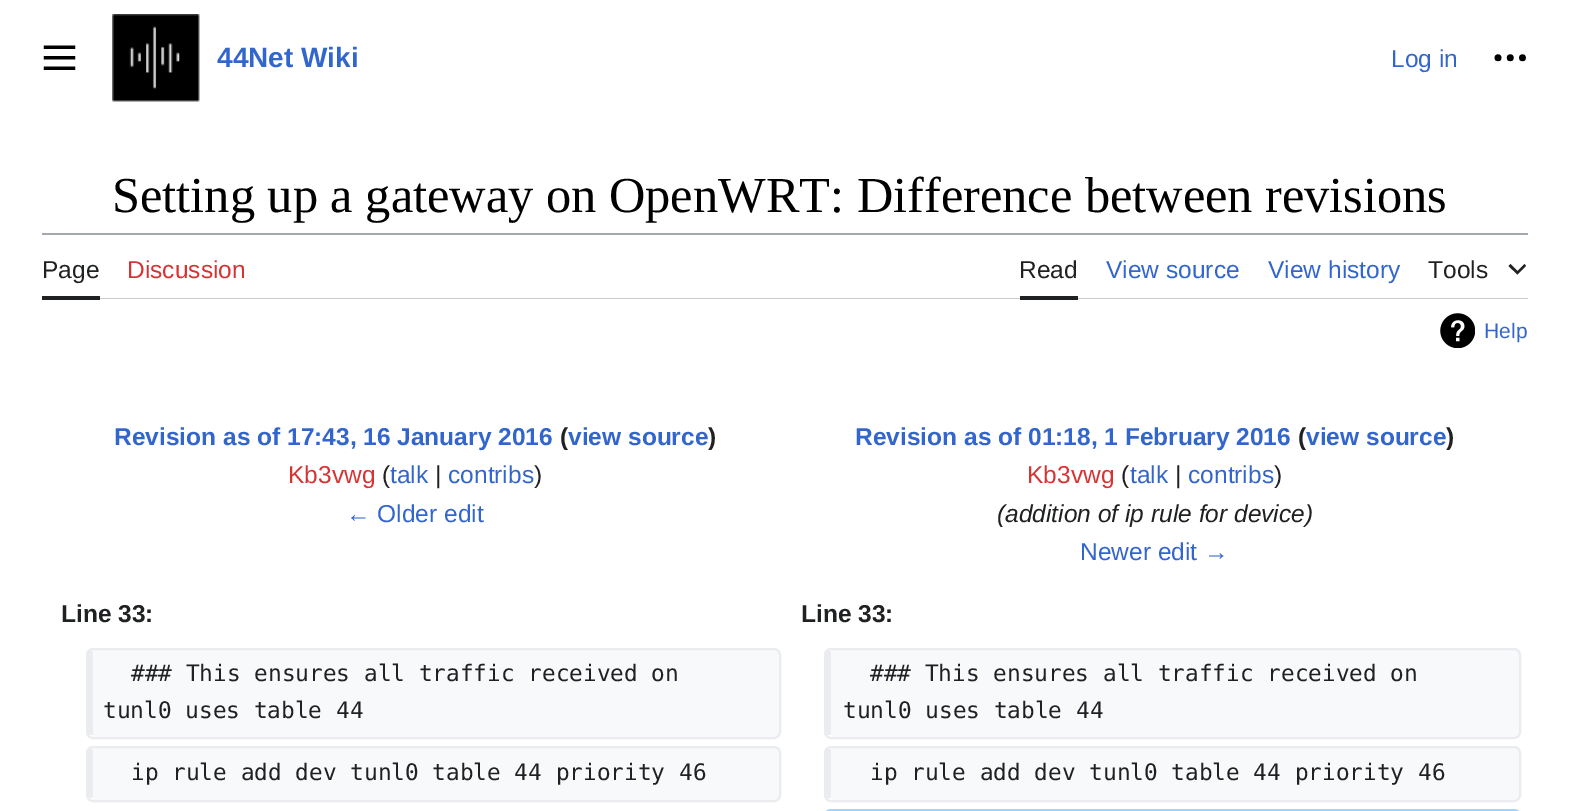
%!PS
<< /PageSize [1569 811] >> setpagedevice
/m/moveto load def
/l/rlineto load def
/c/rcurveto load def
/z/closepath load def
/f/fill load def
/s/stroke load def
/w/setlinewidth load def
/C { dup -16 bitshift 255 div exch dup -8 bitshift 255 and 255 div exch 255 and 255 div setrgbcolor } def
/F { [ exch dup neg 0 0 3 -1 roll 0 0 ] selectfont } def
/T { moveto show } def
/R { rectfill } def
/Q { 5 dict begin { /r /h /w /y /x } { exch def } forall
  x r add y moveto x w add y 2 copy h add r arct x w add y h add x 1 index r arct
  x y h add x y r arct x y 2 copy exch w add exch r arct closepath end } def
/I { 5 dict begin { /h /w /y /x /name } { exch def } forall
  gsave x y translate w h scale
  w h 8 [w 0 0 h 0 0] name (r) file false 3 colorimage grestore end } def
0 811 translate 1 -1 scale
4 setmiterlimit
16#FFFFFF C
0 0 1569 811 R
(1.rgb) 43 45 33 25 I
(2.rgb) 112 14 88 88 I
/LiberationSans-Bold 28 F
16#3366CC C
(44Net Wiki) 217 67 T
/LiberationSans-Regular 24.5 F
(Log in) 1391 67 T
(3.rgb) 1494 54 32 8 I
/LiberationSerif-Regular 50.4 F
16#000000 C
(Setting up a gateway on OpenWRT: Difference between revisions) 112 212 T
16#A2A9B1 C
42 233 1486 2 R
16#C8CCD1 C
42 298 m 0 1 l 1486 0 l 0 -63 l 0 62 l z f
16#202122 C
42 296 58 4 R
/LiberationSans-Regular 24.5 F
(Page) 42 278 T
16#D73333 C
(Discussion) 127 278 T
16#202122 C
1020 296 58 4 R
(Read) 1019 278 T
16#3366CC C
(View source) 1106 278 T
(View history) 1268 278 T
16#202122 C
(Tools) 1428 278 T
1526 266 m -1.5 -2 l -7 7 l -7 -7 l -2 2 l 9 8.5 l z f
(4.rgb) 1440 313 35 35 I
/LiberationSans-Regular 21 F
16#3366CC C
(Help) 1484 338 T
/LiberationSans-Bold 24.5 F
(Revision as of 17:43, 16 January 2016) 114 445 T
16#202122 C
(\() 560 445 T
16#3366CC C
(view source) 568 445 T
16#202122 C
(\)) 708 445 T
/LiberationSans-Regular 24.5 F
16#D73333 C
(Kb3vwg) 288 483 T
16#202122 C
(\() 382 483 T
16#3366CC C
(talk) 390 483 T
16#202122 C
(|) 435 483 T
16#3366CC C
(contribs) 448 483 T
16#202122 C
(\)) 534 483 T
16#3366CC C
(← Older edit) 346 522 T
/LiberationSans-Bold 24.5 F
(Revision as of 01:18, 1 February 2016) 855 445 T
16#202122 C
(\() 1298 445 T
16#3366CC C
(view source) 1306 445 T
16#202122 C
(\)) 1446 445 T
/LiberationSans-Regular 24.5 F
16#D73333 C
(Kb3vwg) 1027 483 T
16#202122 C
(\() 1121 483 T
16#3366CC C
(talk) 1130 483 T
16#202122 C
(|) 1175 483 T
16#3366CC C
(contribs) 1188 483 T
16#202122 C
(\)) 1274 483 T
/LiberationSans-Italic 24.5 F
(\(addition of ip rule for device\)) 997 522 T
/LiberationSans-Regular 24.5 F
16#3366CC C
(Newer edit →) 1080 560 T
/LiberationSans-Bold 24.5 F
16#202122 C
(Line 33:) 61 622 T
(Line 33:) 801 622 T
16#F8F9FA C
93 649 m 680 0 l 9 0 6 15 6 19 c 0 50 l 0 4 3 19 -6 19 c -680 0 l 0 -6 l 0 -76 l z f
16#EAECF0 C
2 w
87 649 693 89 6 Q s
88 651 5 84 R
/DejaVuSansMono-Regular 22.75 F
16#202122 C
(### This ensures all traffic received on) 131 681 T
(tunl0 uses table 44) 103 718 T
16#F8F9FA C
832 649 m 681 0 l 9 0 6 15 6 19 c 0 50 l 0 4 3 19 -6 19 c -681 0 l -1 -6 l 0 -76 l z f
16#EAECF0 C
825 649 695 89 6 Q s
826 651 5 84 R
16#202122 C
(### This ensures all traffic received on) 870 681 T
(tunl0 uses table 44) 843 718 T
16#F8F9FA C
93 747 m 680 0 l 3 0 6 3 6 6 c 0 41 l 0 3 -3 6 -6 6 c -680 0 l 0 -6 l 0 -41 l z f
16#EAECF0 C
87 747 693 54 6 Q s
88 749 5 49 R
16#202122 C
(ip rule add dev tunl0 table 44 priority 46) 131 780 T
16#F8F9FA C
832 747 m 681 0 l 3 0 6 3 6 6 c 0 41 l 0 3 -3 6 -6 6 c -681 0 l -1 -6 l 0 -41 l z f
16#EAECF0 C
825 747 695 54 6 Q s
826 749 5 49 R
16#202122 C
(ip rule add dev tunl0 table 44 priority 46) 870 780 T
16#A3D3FF C
825 810 695 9 6 Q s
showpage
